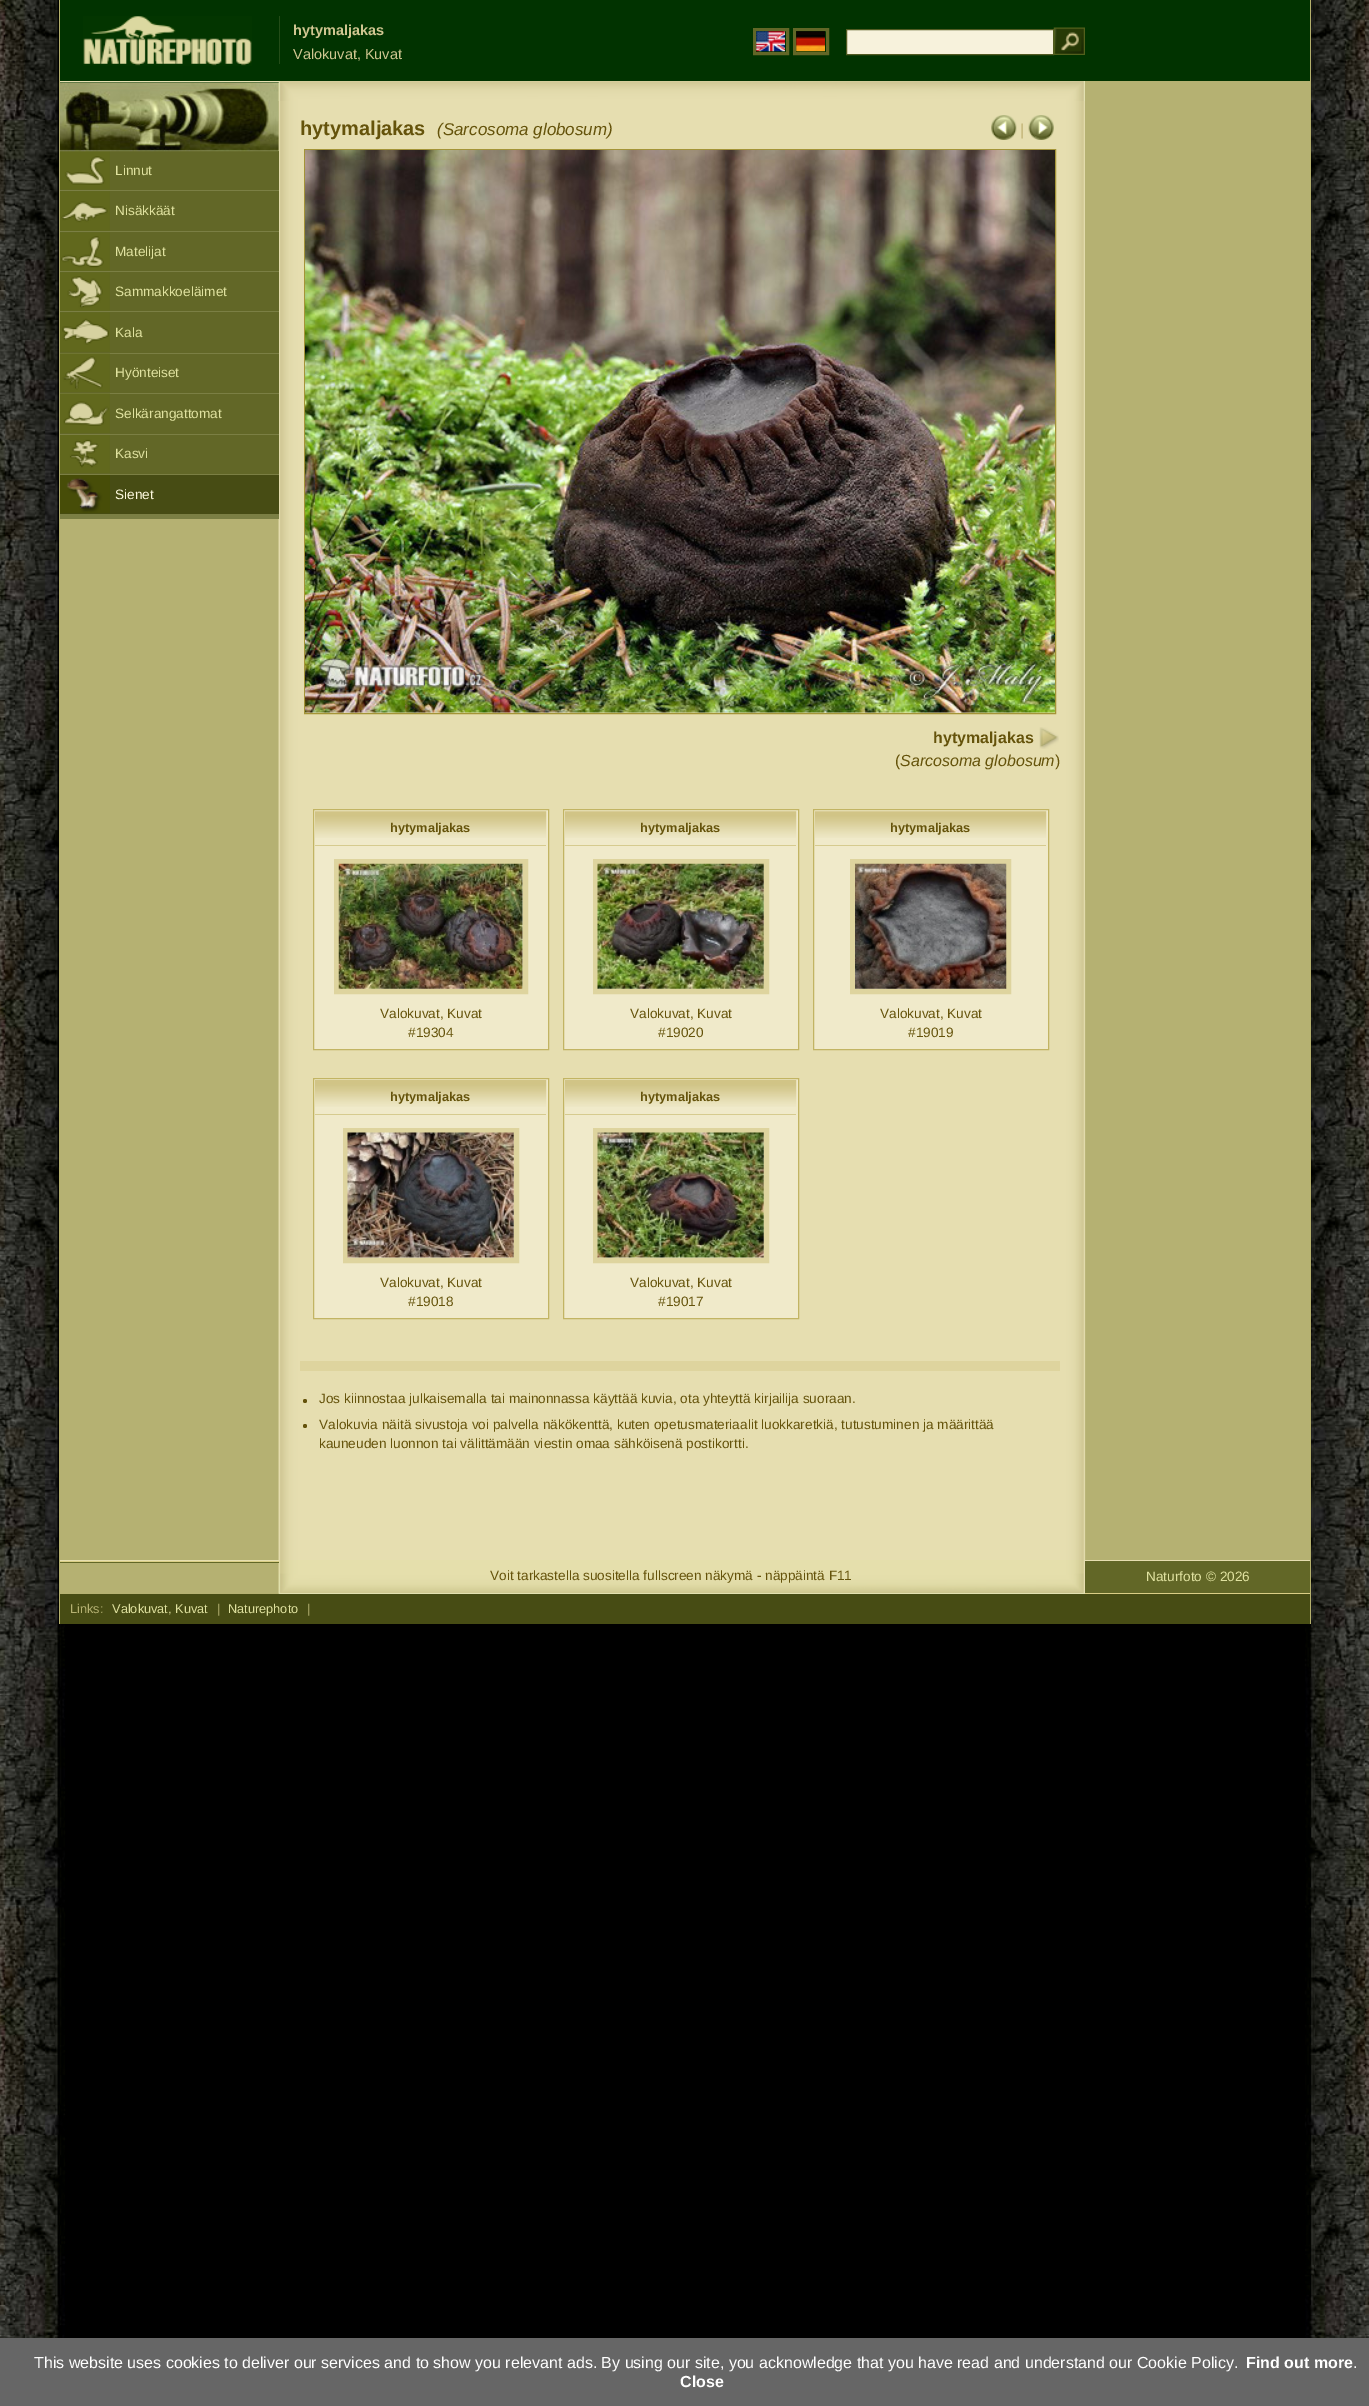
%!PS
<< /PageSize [1369 2406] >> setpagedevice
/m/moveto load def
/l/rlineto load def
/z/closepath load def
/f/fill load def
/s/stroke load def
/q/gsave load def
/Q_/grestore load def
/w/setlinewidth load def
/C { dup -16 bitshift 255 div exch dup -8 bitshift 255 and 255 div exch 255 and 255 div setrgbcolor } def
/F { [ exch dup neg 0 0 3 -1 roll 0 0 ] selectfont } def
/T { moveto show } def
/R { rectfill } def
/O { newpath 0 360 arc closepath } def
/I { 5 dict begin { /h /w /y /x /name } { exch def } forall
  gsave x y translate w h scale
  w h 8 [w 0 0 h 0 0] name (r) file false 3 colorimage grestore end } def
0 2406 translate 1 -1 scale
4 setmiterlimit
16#FFFFFF C
0 0 1369 2406 R
(1.rgb) 0 0 1369 2338 I
(2.rgb) 60 83 219 1511 I
16#B5B06C C
1310 0 1 1624 R
59 0 1 1624 R
16#013300 C
60 0 1250 83 R
16#E6DEB0 C
60 81 1025 1 R
(3.rgb) 83 16 169 50 I
16#234C18 C
279 16 1 48 R
/LiberationSans-Bold 14.5 F
16#D0C691 C
(hytymaljakas) 293 35 T
/LiberationSans-Regular 14.5 F
(Valokuvat, Kuvat) 293 59 T
16#626727 C
3 w
754.5 29.5 33 24 rectstroke
794.5 29.5 33 24 rectstroke
16#F7F2DC C
846.5 29.5 m 207 0 l 0 25 l -207 0 l z q f Q_
16#525B22 C
1 w
s
(4.rgb) 1053 27 32 28 I
(5.rgb) 756 31 29 21 I
(6.rgb) 796 31 29 21 I
(19.rgb) 278 81 1032 1479 I
16#626727 C
60 151 219 39 R
(8.rgb) 60 151 50 39 I
(7.rgb) 60 82 219 70 I
16#7B7F44 C
60 514 219 5 R
60 190 219 1 R
/LiberationSans-Regular 13.6 F
16#E0E2A0 C
(Linnut) 115 175 T
16#626727 C
60 232 219 39 R
16#7B7F44 C
60 231 219 1 R
16#626727 C
60 191 219 40 R
(9.rgb) 60 191 50 40 I
16#E0E2A0 C
(Nisäkkäät) 115 215 T
16#626727 C
60 272 219 39 R
(10.rgb) 60 232 50 1 I
16#7B7F44 C
60 271 219 1 R
(11.rgb) 60 233 50 38 I
16#E0E2A0 C
(Matelijat) 115 256 T
16#626727 C
60 312 219 41 R
(10.rgb) 60 272 50 1 I
16#7B7F44 C
60 311 219 1 R
(12.rgb) 60 273 50 38 I
16#E0E2A0 C
(Sammakkoeläimet) 115 296 T
(10.rgb) 60 312 50 1 I
16#7B7F44 C
60 353 219 1 R
(13.rgb) 60 313 50 39 I
16#E0E2A0 C
(Kala) 115 337 T
(14.rgb) 60 353 50 1 I
16#7B7F44 C
60 393 219 1 R
16#626727 C
60 354 219 39 R
(15.rgb) 60 353 50 39 I
16#E0E2A0 C
(Hyönteiset) 115 377 T
(14.rgb) 60 393 50 1 I
16#7B7F44 C
60 434 219 1 R
16#626727 C
60 394 219 40 R
(16.rgb) 60 393 50 40 I
16#E0E2A0 C
(Selkärangattomat) 115 418 T
16#7B7F44 C
60 474 219 1 R
16#626727 C
60 435 219 39 R
(17.rgb) 60 435 50 38 I
16#E0E2A0 C
(Kasvi) 115 458 T
16#474C14 C
60 475 219 39 R
(18.rgb) 60 475 50 39 I
16#FEF9DF C
(Sienet) 115 499 T
(20.rgb) 278 81 807 20 I
/LiberationSans-Bold 20 F
16#65530B C
(hytymaljakas) 300 135 T
/LiberationSans-Italic 17 F
(\(Sarcosoma globosum\)) 437 135 T
(21.rgb) 991 115 26 25 I
/LiberationSans-Regular 16 F
16#BFB072 C
(|) 1020 135 T
(22.rgb) 1028 115 26 25 I
16#A49437 C
304.5 149.5 751 564 rectstroke
(23.rgb) 305 150 750 563 I
/LiberationSans-Bold 16 F
16#65530B C
(hytymaljakas) 933 743 T
(24.rgb) 1039 727 20 22 I
/LiberationSans-Regular 16 F
(\() 895 766 T
/LiberationSans-Italic 16 F
(Sarcosoma globosum) 900 766 T
/LiberationSans-Regular 16 F
(\)) 1055 766 T
16#F0EACA C
313.5 809.5 m 235 0 l 0 240 l -235 0 l z q f Q_
16#C2B463 C
s
(25.rgb) 315 811 232 27 I
16#D6CB8F C
315 845 231 1 R
/LiberationSans-Bold 12.75 F
16#65530B C
(hytymaljakas) 390 832 T
16#DED49E C
5 w
336.5 861.5 189 130 rectstroke
(26.rgb) 338 863 185 126 I
/LiberationSans-Regular 13.6 F
16#65530B C
(Valokuvat, Kuvat) 380 1018 T
(#19304) 408 1037 T
16#F0EACA C
563.5 809.5 m 235 0 l 0 240 l -235 0 l z q f Q_
16#C2B463 C
1 w
s
(25.rgb) 565 811 232 27 I
16#D6CB8F C
565 845 231 1 R
/LiberationSans-Bold 12.75 F
16#65530B C
(hytymaljakas) 640 832 T
16#DED49E C
5 w
595.5 861.5 171 130 rectstroke
(27.rgb) 597 863 167 126 I
/LiberationSans-Regular 13.6 F
16#65530B C
(Valokuvat, Kuvat) 630 1018 T
(#19020) 658 1037 T
16#F0EACA C
813.5 809.5 m 235 0 l 0 240 l -235 0 l z q f Q_
16#C2B463 C
1 w
s
(25.rgb) 815 811 232 27 I
16#D6CB8F C
815 845 231 1 R
/LiberationSans-Bold 12.75 F
16#65530B C
(hytymaljakas) 890 832 T
16#DED49E C
5 w
852.5 861.5 156 130 rectstroke
(28.rgb) 855 863 152 126 I
/LiberationSans-Regular 13.6 F
16#65530B C
(Valokuvat, Kuvat) 880 1018 T
(#19019) 908 1037 T
16#F0EACA C
313.5 1078.5 m 235 0 l 0 240 l -235 0 l z q f Q_
16#C2B463 C
1 w
s
(29.rgb) 315 1080 232 27 I
16#D6CB8F C
315 1114 231 1 R
/LiberationSans-Bold 12.75 F
16#65530B C
(hytymaljakas) 390 1101 T
16#DED49E C
5 w
345.5 1130.5 171 130 rectstroke
(30.rgb) 347 1132 167 126 I
/LiberationSans-Regular 13.6 F
16#65530B C
(Valokuvat, Kuvat) 380 1287 T
(#19018) 408 1306 T
16#F0EACA C
563.5 1078.5 m 235 0 l 0 240 l -235 0 l z q f Q_
16#C2B463 C
1 w
s
(29.rgb) 565 1080 232 27 I
16#D6CB8F C
565 1114 231 1 R
/LiberationSans-Bold 12.75 F
16#65530B C
(hytymaljakas) 640 1101 T
16#DED49E C
5 w
595.5 1130.5 171 130 rectstroke
(31.rgb) 597 1132 167 126 I
/LiberationSans-Regular 13.6 F
16#65530B C
(Valokuvat, Kuvat) 630 1287 T
(#19017) 658 1306 T
16#DED49E C
300 1361 760 10 R
16#65530B C
305 1401 2 O f
(Jos kiinnostaa julkaisemalla tai mainonnassa käyttää kuvia, ota yhteyttä kirjailija suoraan.) 319 1403 T
305 1426 2 O f
(Valokuvia näitä sivustoja voi palvella näkökenttä, kuten opetusmateriaalit luokkaretkiä, tutustuminen ja määrittää) 319 1429 T
(kauneuden luonnon tai välittämään viestin omaa sähköisenä postikortti.) 319 1448 T
16#B5B172 C
1085 81 225 819 R
(32.rgb) 278 1560 806 34 I
16#626727 C
60 1562 219 1 R
16#E6DEB0 C
60 1560 219 1 R
16#DACE86 C
60 1561 219 1 R
16#E6DEB0 C
1084 1560 1 33 R
16#E3E1B1 C
279 1593 806 1 R
16#65530B C
(Voit tarkastella suositella fullscreen näkymä - näppäintä F11) 490 1580 T
16#626727 C
1085 1561 225 32 R
16#E6DEB0 C
1085 1560 225 1 R
16#DACE86 C
1085 1593 225 1 R
16#E0E2A0 C
(Naturfoto © 2026) 1146 1581 T
16#474C14 C
60 1594 1250 30 R
/LiberationSans-Regular 12.75 F
16#B5B172 C
(Links:) 70 1613 T
16#E0E2A0 C
(Valokuvat, Kuvat) 112 1613 T
16#B5B172 C
(|) 217 1613 T
16#E0E2A0 C
(Naturephoto) 228 1613 T
16#B5B172 C
(|) 307 1613 T
16#666666 C
0 2338 1369 68 R
/LiberationSans-Regular 16 F
16#FFFFFF C
(This website uses cookies to deliver our services and to show you relevant ads. By using our site, you acknowledge that you have read and understand our Cookie Policy.) 34 2368 T
/LiberationSans-Bold 16 F
(Find out more) 1246 2368 T
/LiberationSans-Regular 16 F
(.) 1353 2368 T
/LiberationSans-Bold 16 F
(Close) 680 2387 T
showpage
